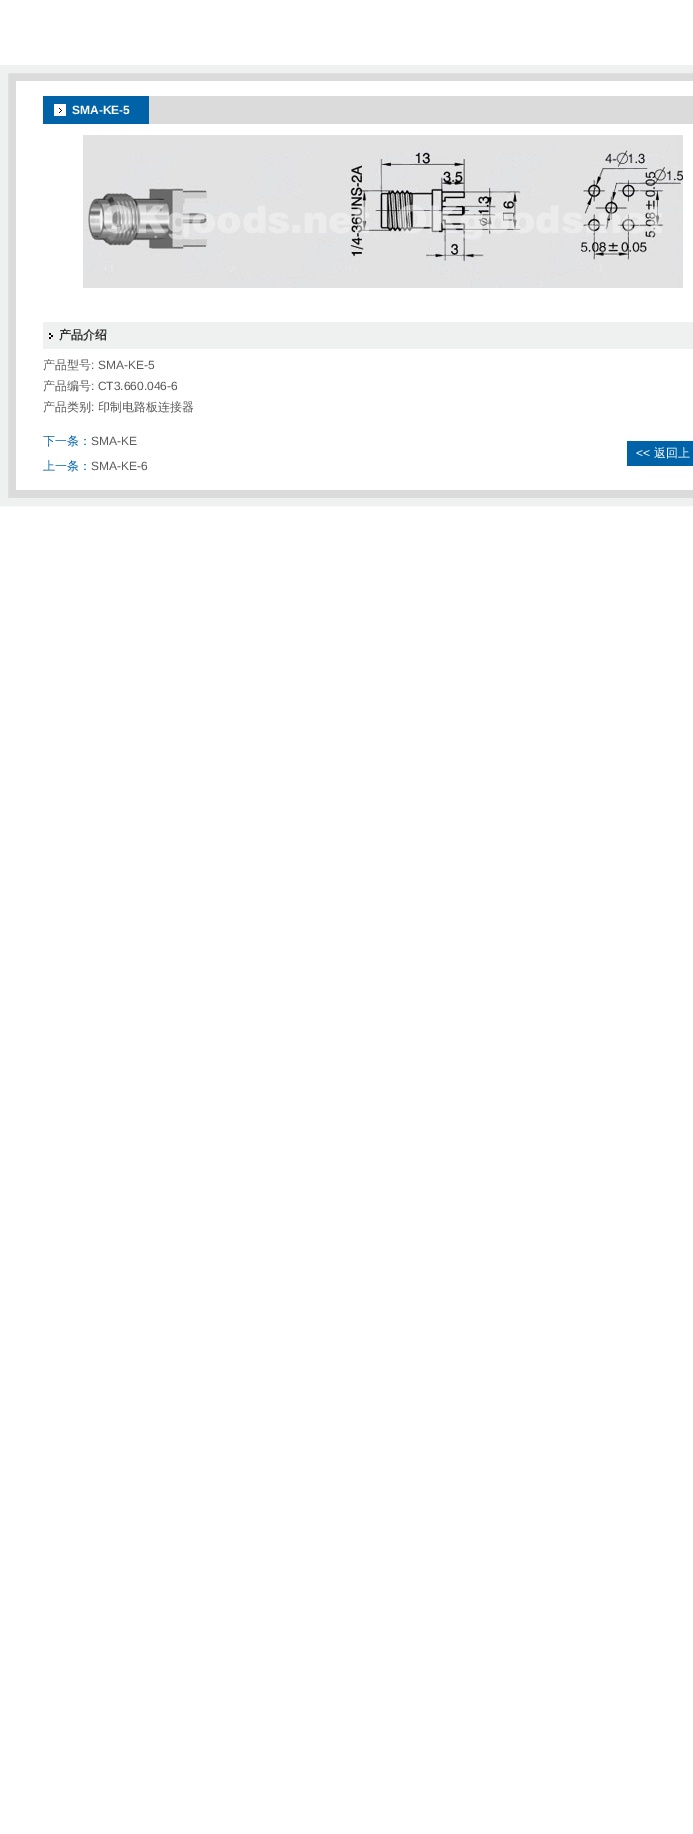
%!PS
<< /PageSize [693 1834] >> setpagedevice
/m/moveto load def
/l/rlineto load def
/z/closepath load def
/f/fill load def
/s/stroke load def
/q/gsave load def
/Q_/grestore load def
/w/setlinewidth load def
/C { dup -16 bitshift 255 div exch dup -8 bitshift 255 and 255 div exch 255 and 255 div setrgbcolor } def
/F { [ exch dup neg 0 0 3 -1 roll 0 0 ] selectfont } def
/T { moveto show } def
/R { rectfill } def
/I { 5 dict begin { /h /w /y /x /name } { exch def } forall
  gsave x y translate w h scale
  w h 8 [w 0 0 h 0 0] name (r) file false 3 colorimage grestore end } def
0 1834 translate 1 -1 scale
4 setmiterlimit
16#FFFFFF C
0 0 693 1834 R
16#DCDBDB C
4 69 m 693 0 l 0 433 l -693 0 l z q f Q_
16#EFF0F0 C
8 w
s
16#FFFFFF C
16 81 677 409 R
16#DCDBDB C
149 96 544 28 R
16#0063A7 C
43 96 106 28 R
(1.rgb) 54 104 12 12 I
/LiberationSans-Bold 12 F
16#FFFFFF C
(SMA-KE-5) 72 114 T
(2.rgb) 83 135 600 153 I
16#EFF0F0 C
43 322 650 27 R
(3.rgb) 49 333 4 6 I
/WenQuanYiZenHei-Bold 12 F
16#2F2E2E C
(产品介绍) 59 339 T
/WenQuanYiZenHei-Medium 12 F
16#5A5A5A C
(产品型号) 43 369 T
/LiberationSans-Regular 12 F
(: SMA-KE-5) 91 369 T
/WenQuanYiZenHei-Medium 12 F
(产品编号) 43 390 T
/LiberationSans-Regular 12 F
(: CT3.660.046-6) 91 390 T
/WenQuanYiZenHei-Medium 12 F
(产品类别) 43 411 T
/LiberationSans-Regular 12 F
(:) 91 411 T
/WenQuanYiZenHei-Medium 12 F
(印制电路板连接器) 98 411 T
16#0063A7 C
(下一条：) 43 445 T
/LiberationSans-Regular 12 F
16#5A5A5A C
(SMA-KE) 91 445 T
/WenQuanYiZenHei-Medium 12 F
16#0063A7 C
(上一条：) 43 470 T
/LiberationSans-Regular 12 F
16#5A5A5A C
(SMA-KE-6) 91 470 T
16#0063A7 C
627 441 66 25 R
16#FFFFFF C
(<<) 636 457 T
/WenQuanYiZenHei-Medium 12 F
(返回上) 654 457 T
showpage
